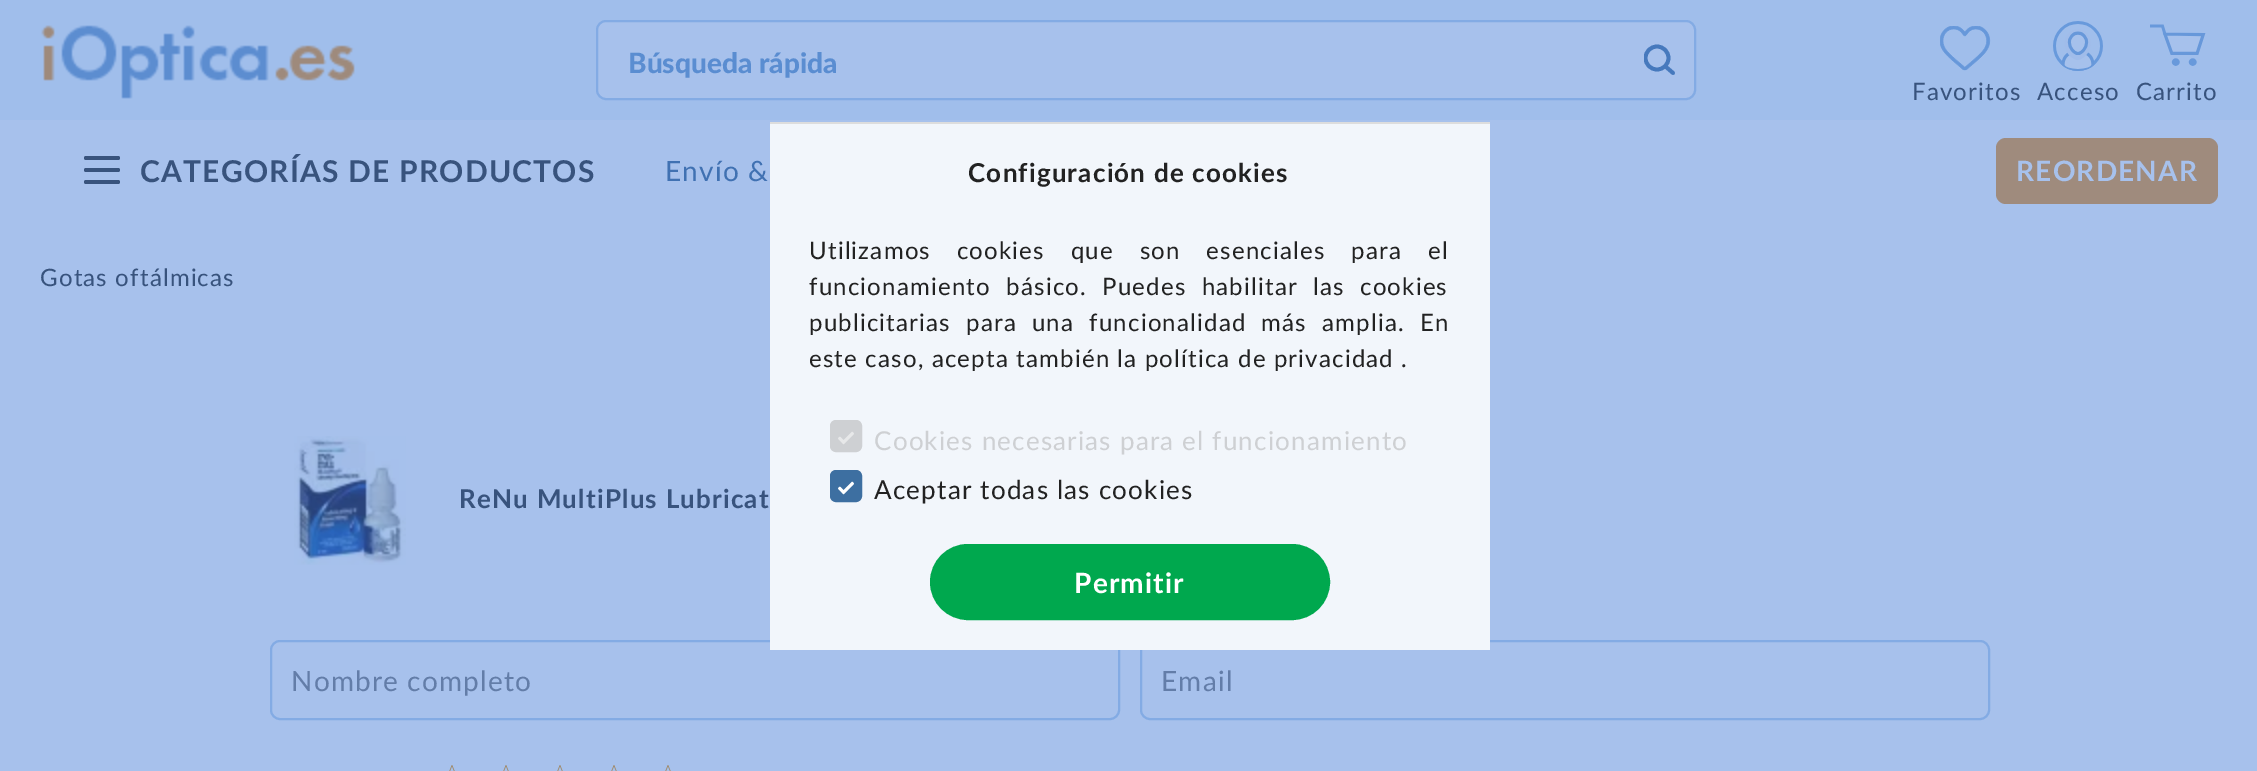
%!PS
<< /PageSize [2257 771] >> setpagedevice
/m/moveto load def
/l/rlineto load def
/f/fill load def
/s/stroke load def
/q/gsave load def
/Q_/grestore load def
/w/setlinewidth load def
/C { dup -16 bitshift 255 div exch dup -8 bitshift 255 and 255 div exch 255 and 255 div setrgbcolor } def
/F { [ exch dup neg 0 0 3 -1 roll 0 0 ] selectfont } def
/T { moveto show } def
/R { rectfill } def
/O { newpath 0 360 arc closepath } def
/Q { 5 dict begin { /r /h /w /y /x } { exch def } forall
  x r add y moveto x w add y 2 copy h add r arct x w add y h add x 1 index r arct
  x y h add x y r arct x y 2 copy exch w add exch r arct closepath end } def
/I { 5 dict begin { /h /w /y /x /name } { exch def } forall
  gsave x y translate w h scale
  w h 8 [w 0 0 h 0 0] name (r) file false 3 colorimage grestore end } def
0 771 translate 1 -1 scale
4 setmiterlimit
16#A7C1EC C
0 0 2257 771 R
16#A0BEEB C
0 0 2257 120 R
(1.rgb) 41 25 314 74 I
16#A7C1EC C
597 21 1098 78 9 Q q f Q_
16#83ABE4 C
2 w
s
/Lato-Black 28 F
16#5A8DD1 C
(Búsqueda rápida) 628 73 T
16#4679BD C
3.8 w
1 setlinecap
1 setlinejoin
1665 66 m 8 7 l s
16#A7C1EC C
1657 58 11.5 O f
q
1644 44 32 32 rectclip
16#4679BD C
0 setlinecap
0 setlinejoin
1657 58 11.5 O s
Q_
(2.rgb) 1940 26 51 45 I
/Lato-Regular 24 F
16#38537D C
1912 100 m 1.2 0 (Favoritos) ashow
(3.rgb) 2053 21 50 50 I
2037 100 m 1.2 0 (Acceso) ashow
(4.rgb) 2150 24 56 42 I
2136 100 m 1.2 0 (Carrito) ashow
84 156 36 4 2 Q f
84 168 36 4 2 Q f
84 180 36 4 2 Q f
/Lato-Bold 30 F
140 182 m 1.2 0 (CATEGORÍAS DE PRODUCTOS) ashow
/Lato-Regular 28 F
16#4071B2 C
665 181 m 1.2 0 (Envío &) ashow
16#9F8B7D C
1996 138 222 66 10 Q f
/Lato-Bold 28 F
16#A7C1EC C
2016 181 m 1.2 0 (REORDENAR) ashow
/Lato-Regular 24 F
16#38537D C
40 286 m 1.2 0 (Gotas oftálmicas) ashow
(5.rgb) 294 436 112 129 I
/Lato-Bold 26 F
459 508 m 1.2 0 (ReNu MultiPlus Lubricat) ashow
16#83ABE4 C
2 w
0 setlinecap
0 setlinejoin
271 641 848 78 9 Q s
/Lato-Regular 28 F
16#637DA8 C
291 691 m 1.2 0 (Nombre completo) ashow
16#83ABE4 C
1141 641 848 78 9 Q s
16#637DA8 C
1161 691 m 1.2 0 (Email) ashow
(6.rgb) 449 765 6 6 I
(6.rgb) 503 765 6 6 I
(6.rgb) 557 765 6 6 I
(6.rgb) 611 765 6 6 I
(6.rgb) 665 765 6 6 I
16#F2F6FB C
770 124 720 526 R
16#DDDDDD C
770 122 720 2 R
/Lato-Bold 26 F
16#222222 C
968 182 m 1.2 0 (Configuración de cookies) ashow
/Lato-Regular 24 F
809 259 m 18.5 0 32 1.2 0 (Utilizamos cookies que son esenciales para el) awidthshow
809 295 m 8 0 32 1.2 0 (funcionamiento básico. Puedes habilitar las cookies) awidthshow
809 331 m 7.75 0 32 1.2 0 (publicitarias para una funcionalidad más amplia. En) awidthshow
809 367 m 1.2 0 (este caso, acepta también la política de privacidad .) ashow
16#CED0D3 C
831 421 30 30 5 Q q f Q_
s
(7.rgb) 838 431 16 14 I
/Lato-Regular 26 F
874 450 m 1.2 0 (Cookies necesarias para el funcionamiento) ashow
16#3D6FA1 C
831 471 30 30 5 Q q f Q_
s
(8.rgb) 838 481 16 14 I
16#222222 C
874 499 m 1.2 0 (Aceptar todas las cookies) ashow
16#00A84E C
931 545 398 74 37 Q q f Q_
s
/Lato-Bold 28 F
16#FFFFFF C
1074 593 m 1.2 0 (Permitir) ashow
showpage
